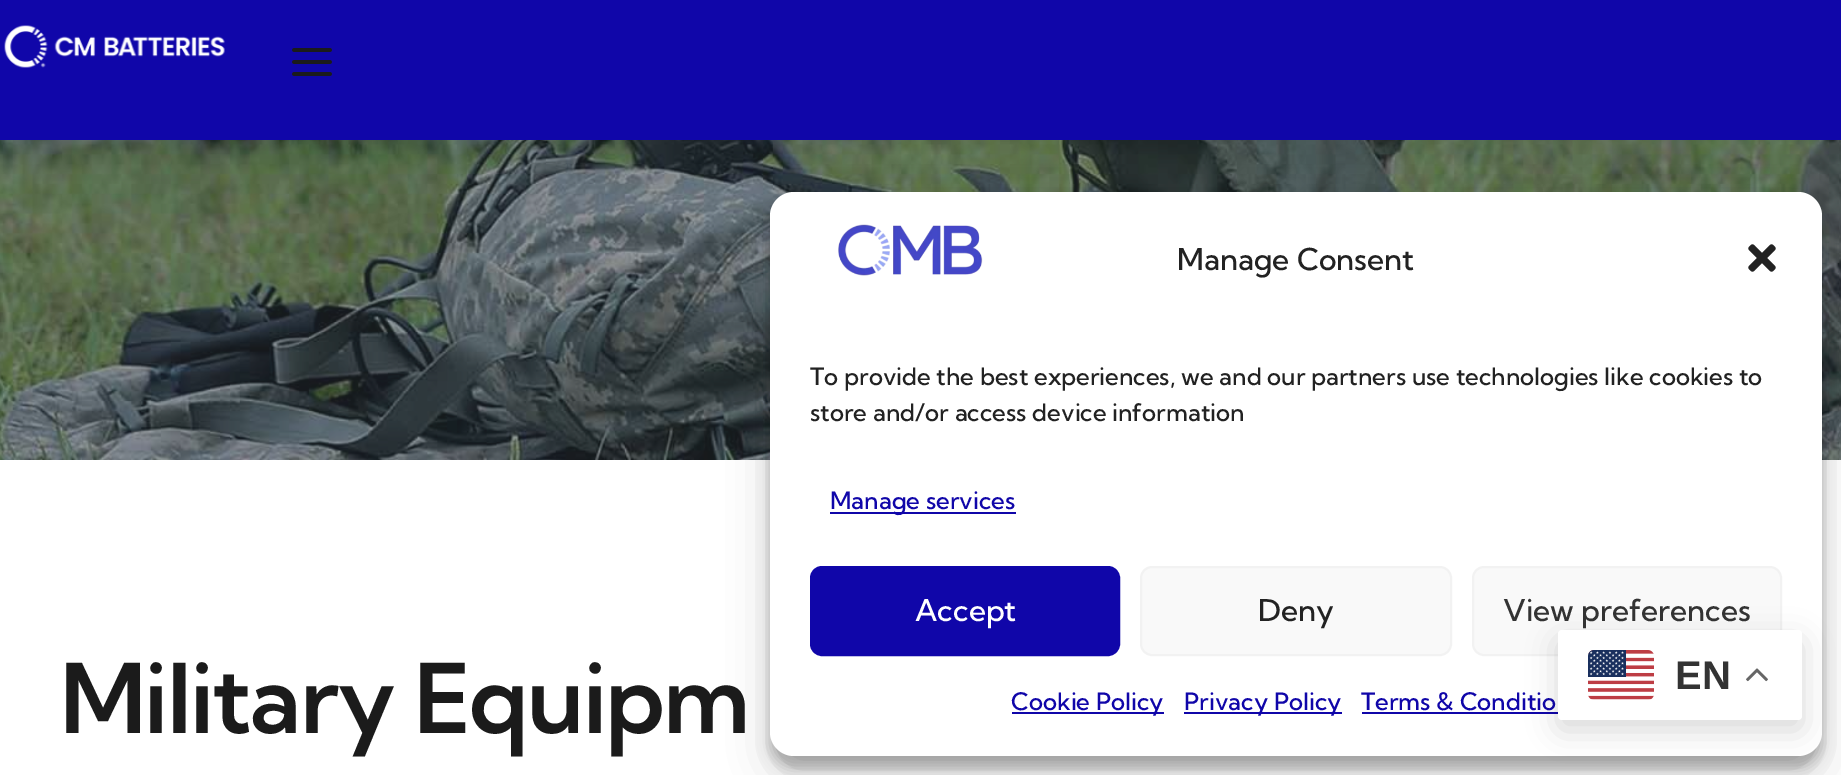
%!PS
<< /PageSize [1841 775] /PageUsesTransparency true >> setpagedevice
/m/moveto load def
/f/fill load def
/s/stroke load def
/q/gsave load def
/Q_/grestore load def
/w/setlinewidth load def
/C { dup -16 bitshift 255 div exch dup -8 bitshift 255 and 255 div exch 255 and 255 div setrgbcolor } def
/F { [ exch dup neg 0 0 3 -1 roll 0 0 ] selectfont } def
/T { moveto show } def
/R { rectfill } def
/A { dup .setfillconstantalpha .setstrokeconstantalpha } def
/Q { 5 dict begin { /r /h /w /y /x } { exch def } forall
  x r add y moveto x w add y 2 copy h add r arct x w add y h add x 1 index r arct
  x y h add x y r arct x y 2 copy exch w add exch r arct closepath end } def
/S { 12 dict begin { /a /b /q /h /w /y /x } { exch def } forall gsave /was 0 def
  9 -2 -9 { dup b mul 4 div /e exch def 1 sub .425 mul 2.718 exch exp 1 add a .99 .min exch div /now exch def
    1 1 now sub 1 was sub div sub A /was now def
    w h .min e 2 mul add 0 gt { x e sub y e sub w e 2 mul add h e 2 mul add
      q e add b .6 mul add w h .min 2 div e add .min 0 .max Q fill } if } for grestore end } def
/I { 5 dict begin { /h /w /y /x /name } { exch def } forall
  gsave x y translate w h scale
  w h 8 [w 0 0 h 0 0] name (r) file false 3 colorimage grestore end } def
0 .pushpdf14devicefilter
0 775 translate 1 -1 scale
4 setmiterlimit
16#FFFFFF C
0 0 1841 775 R
(5.rgb) 0 140 1841 320 I
16#000000 C
770 204 1052 564 24 6 .23 S
770 212 1052 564 24 20 .19 S
16#1F2325 C
10 18 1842 140 0 30 .08 S
16#FFFFFF C
770 192 1052 564 24 Q f
(1.rgb) 838 224 145 52 I
/KumbhSans-Medium 30 F
16#222222 C
(Manage Consent) 1177 270 T
(2.rgb) 1748 244 28 28 I
/KumbhSans-Medium 24 F
(To provide the best experiences, we and our partners use technologies like cookies to) 810 385 T
(store and/or access device information) 810 421 T
16#1006A9 C
830 512 186 2 R
(Manage services) 830 509 T
811 567 308 88 11 Q q f Q_
2 w
s
/KumbhSans-Medium 30 F
16#FFFFFF C
(Accept) 915 621 T
16#F9F9F9 C
1141 567 310 88 11 Q q f Q_
16#F2F2F2 C
s
16#222222 C
(Deny) 1258 621 T
16#F9F9F9 C
1473 567 308 88 11 Q q f Q_
16#F2F2F2 C
s
16#333333 C
(View preferences) 1503 621 T
16#1006A9 C
1012 712 152 2 R
/KumbhSans-Medium 24 F
(Cookie Policy) 1011 710 T
1184 712 158 2 R
(Privacy Policy) 1184 710 T
(Terms & Conditio) 1361 710 T
1362 712 196 2 R
0 0 1841 140 R
(3.rgb) 4 25 221 43 I
(4.rgb) 292 48 40 28 I
/KumbhSans-SemiBold 96 F
16#1B1B1B C
60 733 m -1.9 0 (Military Equipm) ashow
16#000000 C
1558 640 244 90 4 15 .15 S
16#FFFFFF C
1558 630 244 90 4 Q f
(6.rgb) 1588 650 66 50 I
/LiberationSans-Bold 40 F
16#333333 C
(EN) 1675 689 T
(7.rgb) 1746 668 22 14 I
.poppdf14devicefilter showpage
